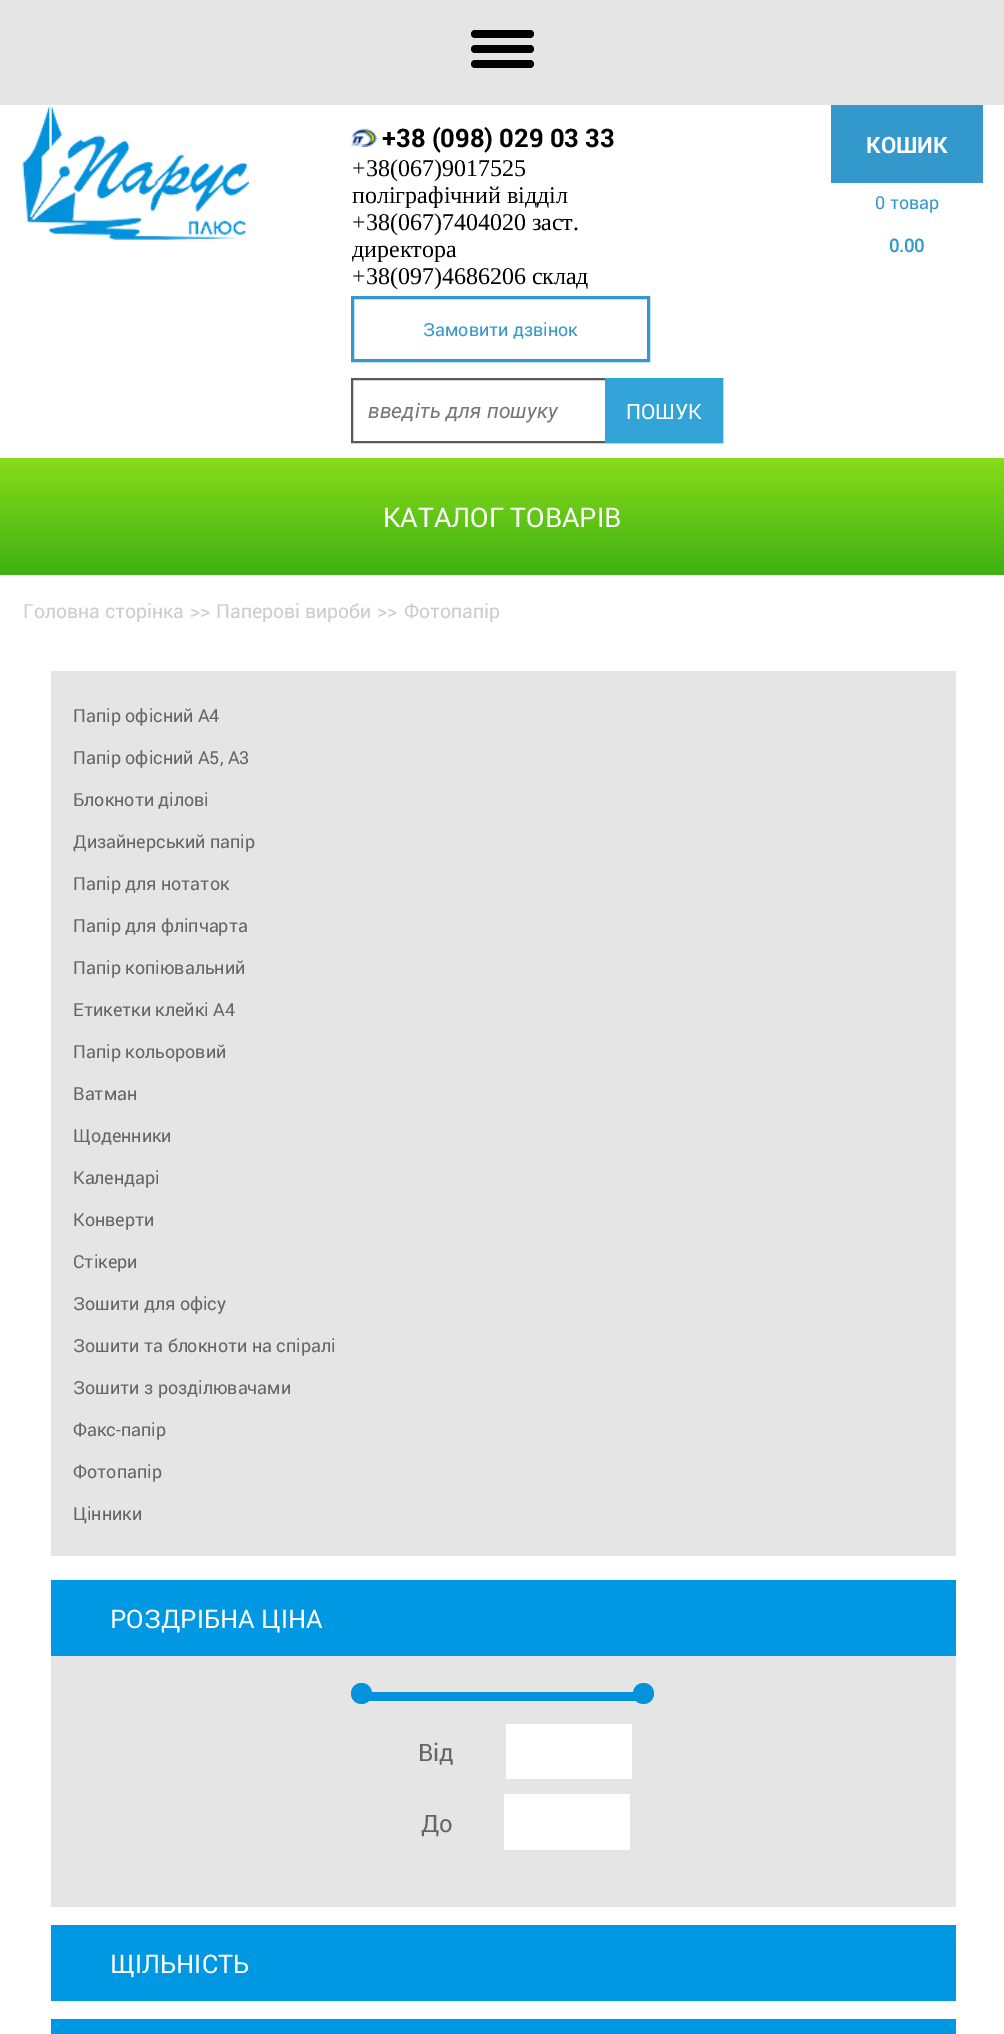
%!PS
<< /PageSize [1004 2034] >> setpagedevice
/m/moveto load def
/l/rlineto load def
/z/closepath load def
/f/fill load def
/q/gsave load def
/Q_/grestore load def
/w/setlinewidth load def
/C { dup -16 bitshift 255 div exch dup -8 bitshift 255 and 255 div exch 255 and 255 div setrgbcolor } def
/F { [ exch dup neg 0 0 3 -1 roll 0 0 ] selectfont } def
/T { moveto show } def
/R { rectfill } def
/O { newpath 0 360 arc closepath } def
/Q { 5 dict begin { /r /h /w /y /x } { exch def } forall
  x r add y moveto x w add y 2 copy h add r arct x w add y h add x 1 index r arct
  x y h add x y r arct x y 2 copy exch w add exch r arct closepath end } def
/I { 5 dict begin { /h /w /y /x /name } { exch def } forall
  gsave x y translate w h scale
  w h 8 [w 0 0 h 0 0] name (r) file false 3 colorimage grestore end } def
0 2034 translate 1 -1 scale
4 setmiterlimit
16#FFFFFF C
0 0 1004 2034 R
16#E5E5E5 C
0 0 1004 105 R
16#000000 C
471 30 63 8 4 Q f
471 45 63 8 4 Q f
471 60 63 8 4 Q f
(1.rgb) 22 105 227 135 I
(2.rgb) 351 128 26 19 I
/Roboto-Bold 25.5 F
(+38 \(098\) 029 03 33) 382 147 T
/LiberationSerif-Regular 24 F
(+38\(067\)9017525) 352 176 T
(поліграфічний відділ) 352 203 T
(+38\(067\)7404020 заст.) 352 230 T
(директора) 352 257 T
(+38\(097\)4686206 склад) 352 284 T
16#3399CC C
3 w
352.5 297.5 296 63 rectstroke
/Roboto-Regular 18 F
(Замовити дзвінок) 423 336 T
16#595959 C
2 w
352 379 370 63 rectstroke
/Roboto-Italic 21 F
16#757575 C
(введіть для пошуку) 368 418 T
16#33A4D7 C
605 378 118 65 R
/Roboto-Regular 21 F
16#FFFFFF C
(ПОШУК) 626 419 T
16#3399CC C
831 105 152 78 R
/Roboto-Bold 22.5 F
16#FFFFFF C
(КОШИК) 866 153 T
/Roboto-Regular 18 F
16#3399CC C
(0 товар) 875 209 T
/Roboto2-Bold 18 F
(0.00) 889 252 T
q 0 458 m 1004 0 l 0 117 l -1004 0 l z clip newpath
<< /ShadingType 2 /ColorSpace /DeviceRGB /Coords [503 575 503 458] /Extend [true true] /Function << /FunctionType 2 /Domain [0 1] /C0 [.243 .69 .075] /C1 [.533 .863 .102] /N 1 >> >> shfill Q_
/Roboto-Regular 27 F
16#FFFFFF C
(КАТАЛОГ ТОВАРІВ) 383 527 T
/Roboto-Regular 19.5 F
16#CCCCCC C
(Головна сторінка) 23 618 T
(>>) 190 618 T
(Паперові вироби) 216 618 T
(>>) 377 618 T
(Фотопапір) 404 618 T
16#E5E5E5 C
51 671 905 885 R
/Roboto-Regular 18 F
16#666666 C
(Папір офісний А4) 73 722 T
(Папір офісний А5, А3) 73 764 T
(Блокноти ділові) 73 806 T
(Дизайнерський папір) 73 848 T
(Папір для нотаток) 73 890 T
(Папір для фліпчарта) 73 932 T
(Папір копіювальний) 73 974 T
(Етикетки клейкі A4) 73 1016 T
(Папір кольоровий) 73 1058 T
(Ватман) 73 1100 T
(Щоденники) 73 1142 T
(Календарі) 73 1184 T
(Конверти) 73 1226 T
(Стікери) 73 1268 T
(Зошити для офісу) 73 1310 T
(Зошити та блокноти на спіралі) 73 1352 T
(Зошити з розділювачами) 73 1394 T
(Факс-папір) 73 1436 T
(Фотопапір) 73 1478 T
(Цінники) 73 1520 T
16#0098E2 C
51 1580 905 76 R
/Roboto-Regular 25.5 F
16#FFFFFF C
(РОЗДРІБНА ЦІНА) 110 1628 T
16#E5E5E5 C
51 1656 905 251 R
16#0492DC C
361.5 1693.5 10.5 O f
643.5 1693.5 10.5 O f
368 1692 269 9 R
/Roboto-Regular 24 F
16#666666 C
(Від) 418 1761 T
16#FFFFFF C
506 1724 126 55 R
16#666666 C
(До) 421 1832 T
16#FFFFFF C
504 1794 126 56 R
16#0098E2 C
51 1925 905 76 R
/Roboto-Regular 25.5 F
16#FFFFFF C
(ЩІЛЬНІСТЬ) 110 1973 T
16#0098E2 C
51 2019 905 15 R
showpage
